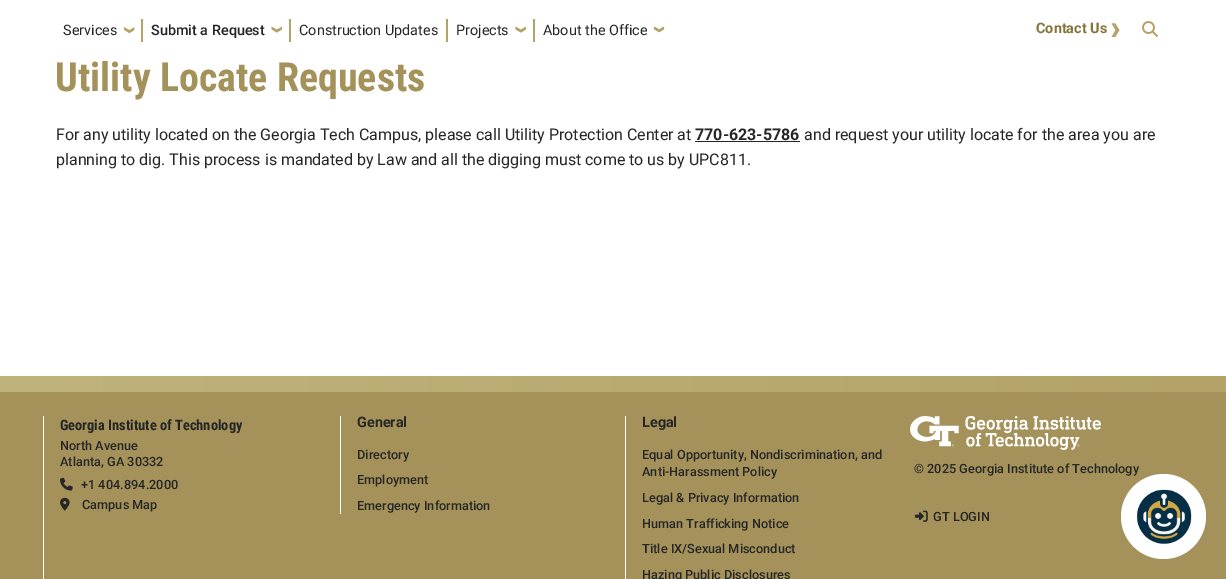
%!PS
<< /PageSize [1226 579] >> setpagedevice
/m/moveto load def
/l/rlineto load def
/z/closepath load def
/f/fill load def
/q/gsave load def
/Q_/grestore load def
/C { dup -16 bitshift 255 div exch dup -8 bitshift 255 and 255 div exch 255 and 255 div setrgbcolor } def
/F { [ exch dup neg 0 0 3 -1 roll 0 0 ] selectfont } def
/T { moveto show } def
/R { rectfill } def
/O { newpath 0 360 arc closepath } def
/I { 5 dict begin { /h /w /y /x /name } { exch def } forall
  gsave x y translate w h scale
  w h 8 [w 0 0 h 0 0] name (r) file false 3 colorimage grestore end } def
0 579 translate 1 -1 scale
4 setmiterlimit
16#FFFFFF C
0 0 1226 579 R
16#B3A369 C
141 19 2 23 R
/Roboto-Regular 14.4 F
16#262626 C
(Services) 63 35 T
(1.rgb) 123 27 12 6 I
16#B3A369 C
289 19 2 23 R
/Roboto-Medium 14.4 F
16#262626 C
(Submit a Request) 151 35 T
(2.rgb) 271 26 11 7 I
16#B3A369 C
446 19 2 23 R
/Roboto-Regular 14.4 F
16#262626 C
(Construction Updates) 299 35 T
16#B3A369 C
533 19 2 23 R
16#262626 C
(Projects) 456 35 T
(3.rgb) 515 26 11 7 I
(About the Office) 543 35 T
(4.rgb) 653 26 12 7 I
/Roboto-Bold 14.4 F
16#857437 C
(Contact Us) 1036 33 T
(5.rgb) 1111 23 9 14 I
(6.rgb) 1142 21 16 16 I
/RobotoCondensed-Bold 40 F
16#A4925A C
(Utility Locate Requests) 55 91 T
/Roboto-Regular 16 F
16#262626 C
(For any utility located on the Georgia Tech Campus, please call Utility Protection Center at) 56 140 T
/Roboto-Bold 16 F
(770-623-5786) 695 140 T
695 141 105 1 R
/Roboto-Regular 16 F
(and request your utility locate for the area you are) 804 140 T
(planning to dig. This process is mandated by Law and all the digging must come to us by UPC811.) 56 165 T
q 0 376 m 1226 0 l 0 16 l -1226 0 l z clip newpath
<< /ShadingType 2 /ColorSpace /DeviceRGB /Coords [0 384 1226 384] /Extend [true true] /Function << /FunctionType 2 /Domain [0 1] /C0 [.749 .702 .486] /C1 [.702 .639 .412] /N 1 >> >> shfill Q_
16#A4925A C
0 392 1226 187 R
16#FFFFFF C
43 416 1 163 R
/RobotoCondensed-Bold 14.4 F
16#262626 C
(Georgia Institute of Technology) 60 430 T
/Roboto-Medium 12.75 F
(North Avenue) 60 450 T
(Atlanta, GA 30332) 60 466 T
(7.rgb) 60 477 13 14 I
(+1 404.894.2000) 81 489 T
(8.rgb) 60 497 10 14 I
(Campus Map) 82 509 T
16#FFFFFF C
340 416 1 98 R
/Roboto-Bold 14.4 F
16#262626 C
(General) 357 427 T
/Roboto-Medium 12.75 F
(Directory) 357 459 T
(Employment) 357 484 T
(Emergency Information) 357 510 T
16#FFFFFF C
625 416 1 163 R
/Roboto-Bold 14.4 F
16#262626 C
(Legal) 642 427 T
/Roboto-Medium 12.75 F
(Equal Opportunity, Nondiscrimination, and) 642 459 T
(Anti-Harassment Policy) 642 476 T
(Legal & Privacy Information) 642 502 T
(Human Trafficking Notice) 642 528 T
(Title IX/Sexual Misconduct) 642 553 T
(Hazing Public Disclosures) 642 579 T
(9.rgb) 910 416 191 34 I
(© 2025 Georgia Institute of Technology) 914 473 T
(10.rgb) 915 510 13 12 I
(GT LOGIN) 933 521 T
16#FFFFFF C
1163.5 516.5 42.5 O f
(11.rgb) 1136 489 56 56 I
showpage
